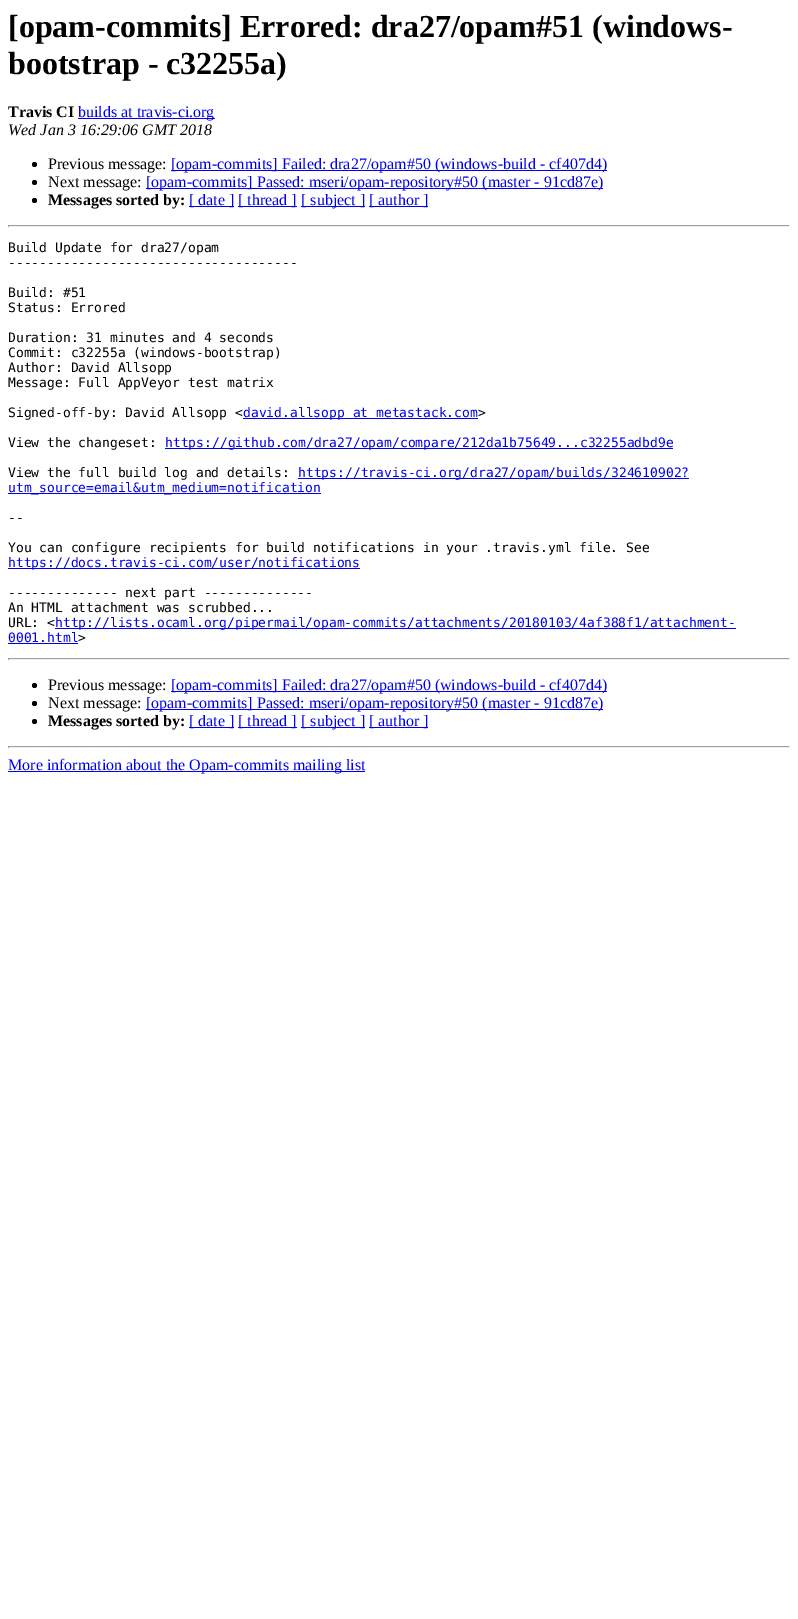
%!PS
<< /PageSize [798 1619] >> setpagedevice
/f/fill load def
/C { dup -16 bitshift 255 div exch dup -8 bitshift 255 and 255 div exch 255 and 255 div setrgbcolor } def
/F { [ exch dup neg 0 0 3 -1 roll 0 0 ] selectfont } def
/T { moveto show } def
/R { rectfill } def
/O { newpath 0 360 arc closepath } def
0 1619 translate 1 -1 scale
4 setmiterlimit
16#FFFFFF C
0 0 798 1619 R
/LiberationSerif-Bold 32 F
16#000000 C
([opam-commits] Errored: dra27/opam#51 \(windows-) 8 37 T
(bootstrap - c32255a\)) 8 74 T
/LiberationSerif-Bold 16 F
(Travis CI) 8 117 T
16#0000EE C
78 118 137 1 R
/LiberationSerif-Regular 16 F
(builds at travis-ci.org) 78 117 T
/LiberationSerif-Italic 16 F
16#000000 C
(Wed Jan 3 16:29:06 GMT 2018) 8 135 T
34.5 164.5 2.5 O f
/LiberationSerif-Regular 16 F
(Previous message:) 48 169 T
16#0000EE C
171 170 436 1 R
([opam-commits] Failed: dra27/opam#50 \(windows-build - cf407d4\)) 171 169 T
16#000000 C
34.5 182.5 2.5 O f
(Next message:) 48 187 T
16#0000EE C
146 188 457 1 R
([opam-commits] Passed: mseri/opam-repository#50 \(master - 91cd87e\)) 146 187 T
16#000000 C
34.5 200.5 2.5 O f
/LiberationSerif-Bold 16 F
(Messages sorted by:) 48 205 T
16#0000EE C
189 206 45 1 R
/LiberationSerif-Regular 16 F
([ date ]) 189 205 T
238 206 59 1 R
([ thread ]) 238 205 T
301 206 64 1 R
([ subject ]) 301 205 T
369 206 59 1 R
([ author ]) 369 205 T
16#9F9F9F C
8 225 782 1 R
16#EEEEEE C
789 225 1 2 R
8 226 782 1 R
16#9F9F9F C
8 225 1 2 R
/DejaVuSansMono-Regular 13 F
16#000000 C
(Build Update for dra27/opam) 8 252 T
(-------------------------------------) 8 267 T
(Build: #51) 8 297 T
(Status: Errored) 8 312 T
(Duration: 31 minutes and 4 seconds) 8 342 T
(Commit: c32255a \(windows-bootstrap\)) 8 357 T
(Author: David Allsopp) 8 372 T
(Message: Full AppVeyor test matrix) 8 387 T
(Signed-off-by: David Allsopp <) 8 417 T
16#0000EE C
243 418 235 1 R
(david.allsopp at metastack.com) 243 417 T
16#000000 C
(>) 478 417 T
(View the changeset:) 8 447 T
16#0000EE C
165 448 508 1 R
(https://github.com/dra27/opam/compare/212da1b75649...c32255adbd9e) 165 447 T
16#000000 C
(View the full build log and details:) 8 477 T
16#0000EE C
298 478 391 1 R
(https://travis-ci.org/dra27/opam/builds/324610902?) 298 477 T
8 493 313 1 R
(utm_source=email&utm_medium=notification) 8 492 T
16#000000 C
(--) 8 522 T
(You can configure recipients for build notifications in your .travis.yml file. See) 8 552 T
16#0000EE C
8 568 352 1 R
(https://docs.travis-ci.com/user/notifications) 8 567 T
16#000000 C
(-------------- next part --------------) 8 597 T
(An HTML attachment was scrubbed...) 8 612 T
(URL: <) 8 627 T
16#0000EE C
55 628 681 1 R
(http://lists.ocaml.org/pipermail/opam-commits/attachments/20180103/4af388f1/attachment-) 55 627 T
(0001.html) 8 642 T
8 643 70 1 R
16#000000 C
(>) 78 642 T
16#9F9F9F C
8 658 782 1 R
16#EEEEEE C
789 658 1 2 R
8 659 782 1 R
16#9F9F9F C
8 658 1 2 R
16#000000 C
34.5 685.5 2.5 O f
/LiberationSerif-Regular 16 F
(Previous message:) 48 690 T
16#0000EE C
171 691 436 1 R
([opam-commits] Failed: dra27/opam#50 \(windows-build - cf407d4\)) 171 690 T
16#000000 C
34.5 703.5 2.5 O f
(Next message:) 48 708 T
16#0000EE C
146 709 457 1 R
([opam-commits] Passed: mseri/opam-repository#50 \(master - 91cd87e\)) 146 708 T
16#000000 C
34.5 721.5 2.5 O f
/LiberationSerif-Bold 16 F
(Messages sorted by:) 48 726 T
16#0000EE C
189 727 45 1 R
/LiberationSerif-Regular 16 F
([ date ]) 189 726 T
238 727 59 1 R
([ thread ]) 238 726 T
301 727 64 1 R
([ subject ]) 301 726 T
369 727 59 1 R
([ author ]) 369 726 T
16#9F9F9F C
8 746 782 1 R
16#EEEEEE C
789 746 1 2 R
8 747 782 1 R
16#9F9F9F C
8 746 1 2 R
16#0000EE C
8 771 357 1 R
(More information about the Opam-commits mailing list) 8 770 T
showpage
